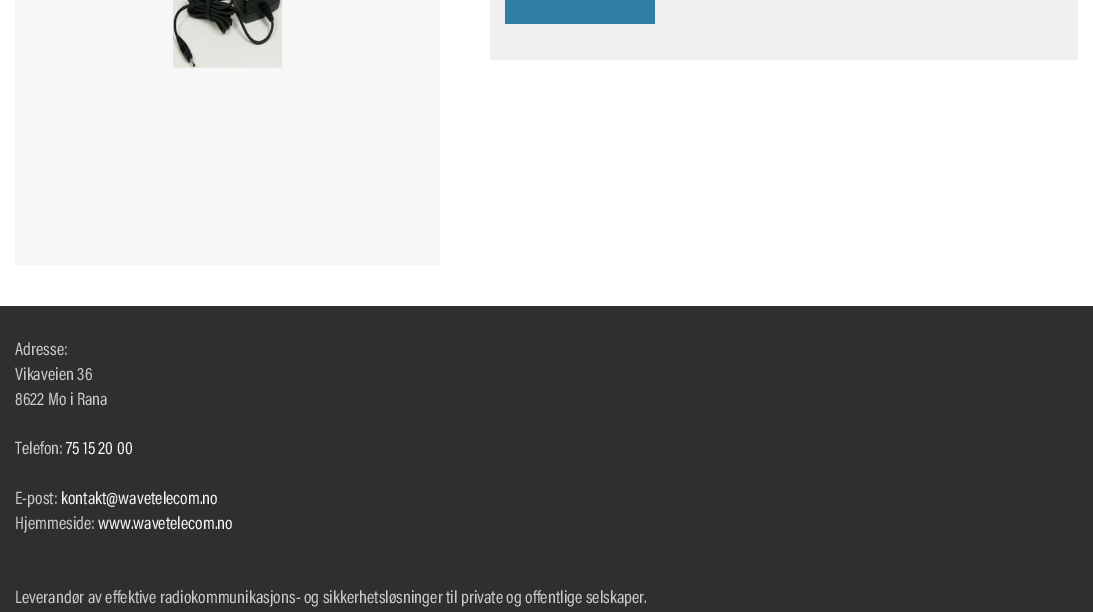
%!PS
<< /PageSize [1093 612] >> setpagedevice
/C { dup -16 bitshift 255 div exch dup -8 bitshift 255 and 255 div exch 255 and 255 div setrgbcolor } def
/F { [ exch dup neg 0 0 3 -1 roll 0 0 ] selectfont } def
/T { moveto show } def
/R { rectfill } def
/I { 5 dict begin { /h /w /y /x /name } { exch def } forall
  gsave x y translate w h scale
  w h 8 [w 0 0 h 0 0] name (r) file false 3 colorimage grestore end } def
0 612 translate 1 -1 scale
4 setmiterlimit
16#FFFFFF C
0 0 1093 612 R
16#F7F7F7 C
15 0 425 265 R
(1.rgb) 171 0 111 69 I
16#EFEFEF C
490 0 588 60 R
16#2E7EA5 C
505 0 150 24 R
16#2F2F2F C
0 306 1093 306 R
/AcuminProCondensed-Regular 18 F
16#CBCBCB C
(Adresse:) 15 355 T
(Vikaveien 36) 15 380 T
(8622 Mo i Rana) 15 405 T
(Telefon:) 15 454 T
16#F5F5F5 C
(75 15 20 00) 66 454 T
16#CBCBCB C
(E-post:) 15 504 T
16#F5F5F5 C
(kontakt@wavetelecom.no) 61 504 T
16#CBCBCB C
(Hjemmeside:) 15 529 T
16#F5F5F5 C
(www.wavetelecom.no) 98 529 T
16#CBCBCB C
(Leverandør av effektive radiokommunikasjons- og sikkerhetsløsninger til private og offentlige selskaper.) 15 603 T
showpage
